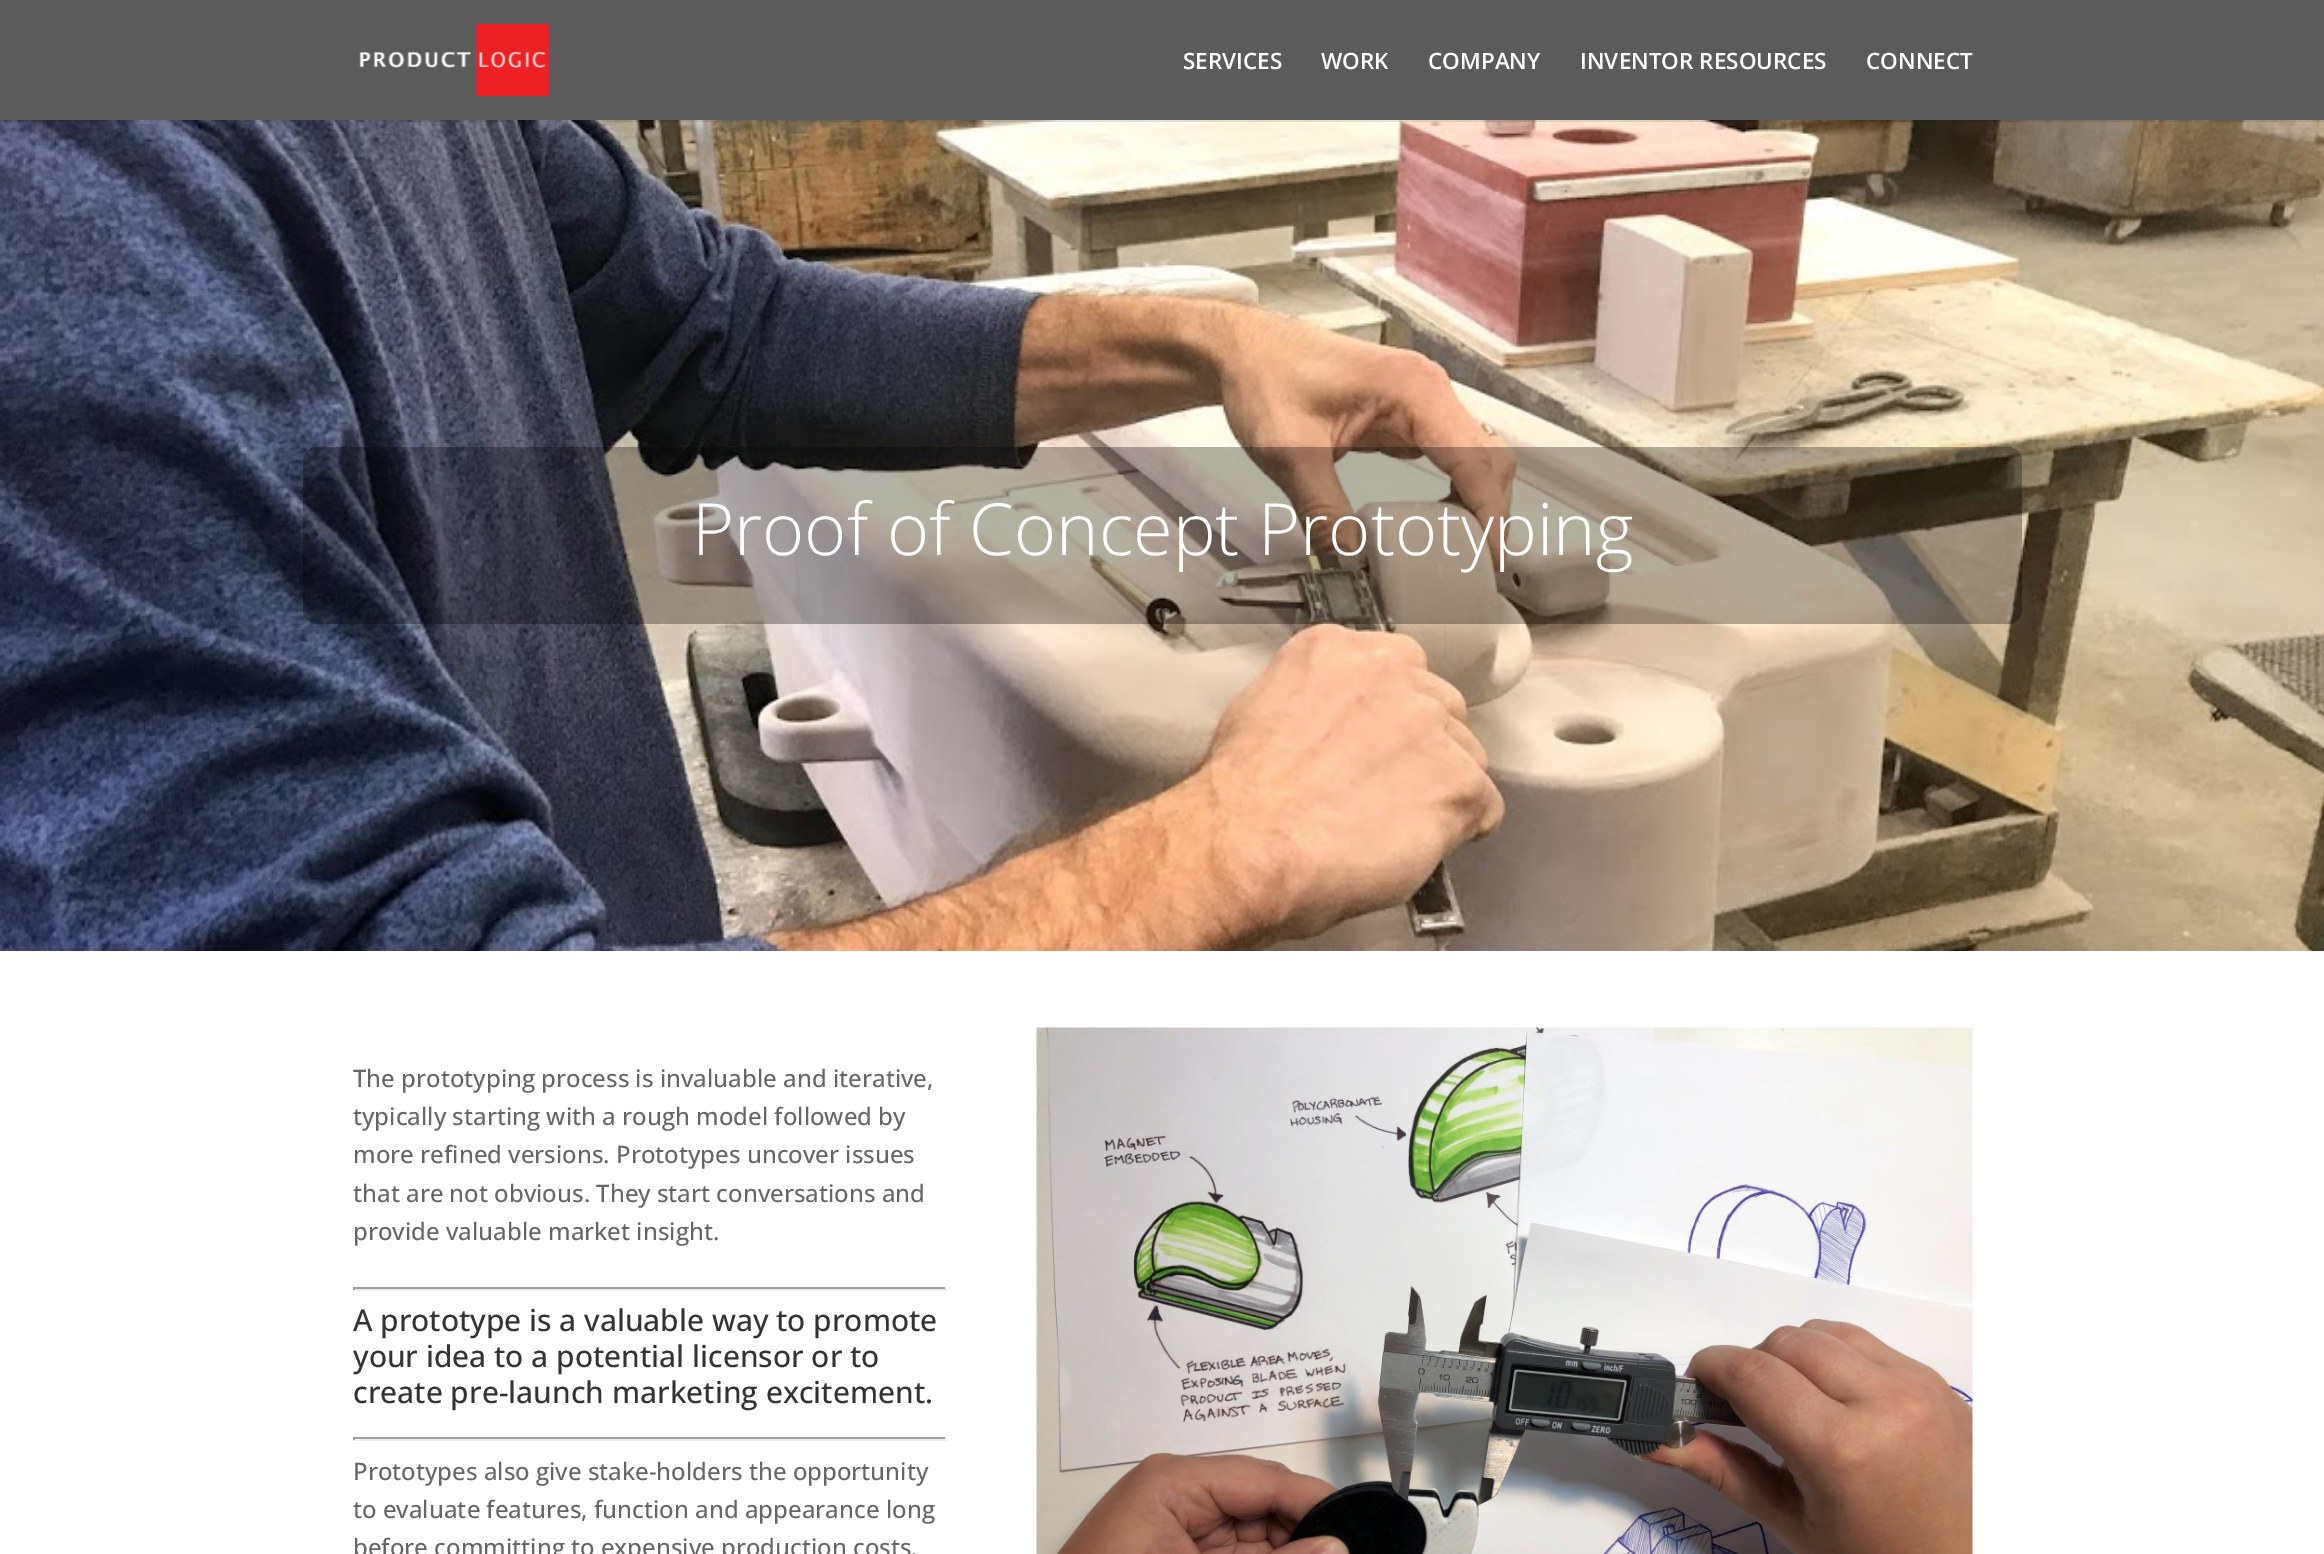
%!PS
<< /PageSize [2324 1554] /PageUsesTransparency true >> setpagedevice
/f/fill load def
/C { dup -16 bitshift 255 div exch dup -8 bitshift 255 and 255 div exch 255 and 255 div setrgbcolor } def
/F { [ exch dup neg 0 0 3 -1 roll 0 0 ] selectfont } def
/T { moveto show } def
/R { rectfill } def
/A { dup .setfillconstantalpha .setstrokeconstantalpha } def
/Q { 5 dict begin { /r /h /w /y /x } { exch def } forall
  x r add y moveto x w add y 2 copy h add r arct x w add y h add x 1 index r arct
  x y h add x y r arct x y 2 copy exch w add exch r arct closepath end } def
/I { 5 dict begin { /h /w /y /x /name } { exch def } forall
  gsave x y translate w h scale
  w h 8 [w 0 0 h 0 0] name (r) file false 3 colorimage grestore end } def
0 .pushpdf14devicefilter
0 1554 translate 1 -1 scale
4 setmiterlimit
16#FFFFFF C
0 0 2324 1554 R
(2.rgb) 0 120 2324 831 I
0.1 A
16#000000 C
0 120 2324 2 R
1 A
16#5B5B5B C
0 0 2324 120 R
(1.rgb) 359 24 191 72 I
/OpenSans-SemiBold 22.5 F
16#FFFFFF C
(SERVICES) 1183 69 T
(WORK) 1321 69 T
(COMPANY) 1428 69 T
(INVENTOR RESOURCES) 1580 69 T
(CONNECT) 1866 69 T
0.3 A
16#000000 C
303 447 1719 177 14 Q f
/OpenSans-Light 72 F
1 A
16#FFFFFF C
(Proof of Concept Prototyping) 692 555 T
/OpenSans-Medium 24 F
16#666666 C
(The prototyping process is invaluable and iterative,) 353 1087 T
(typically starting with a rough model followed by) 353 1125 T
(more refined versions. Prototypes uncover issues) 353 1163 T
(that are not obvious. They start conversations and) 353 1202 T
(provide valuable market insight.) 353 1240 T
16#9F9F9F C
353 1287 594 2 R
16#EEEEEE C
945 1287 2 3 R
353 1289 594 2 R
16#9F9F9F C
353 1287 2 3 R
/OpenSans-Medium 30 F
16#333333 C
(A prototype is a valuable way to promote) 353 1331 T
(your idea to a potential licensor or to) 353 1367 T
(create pre-launch marketing excitement.) 353 1403 T
16#9F9F9F C
353 1437 594 2 R
16#EEEEEE C
945 1437 2 3 R
353 1439 594 2 R
16#9F9F9F C
353 1437 2 3 R
/OpenSans-Medium 24 F
16#666666 C
(Prototypes also give stake-holders the opportunity) 353 1480 T
(to evaluate features, function and appearance long) 353 1518 T
(before committing to expensive production costs.) 353 1556 T
(3.rgb) 1036 1027 937 527 I
.poppdf14devicefilter showpage
